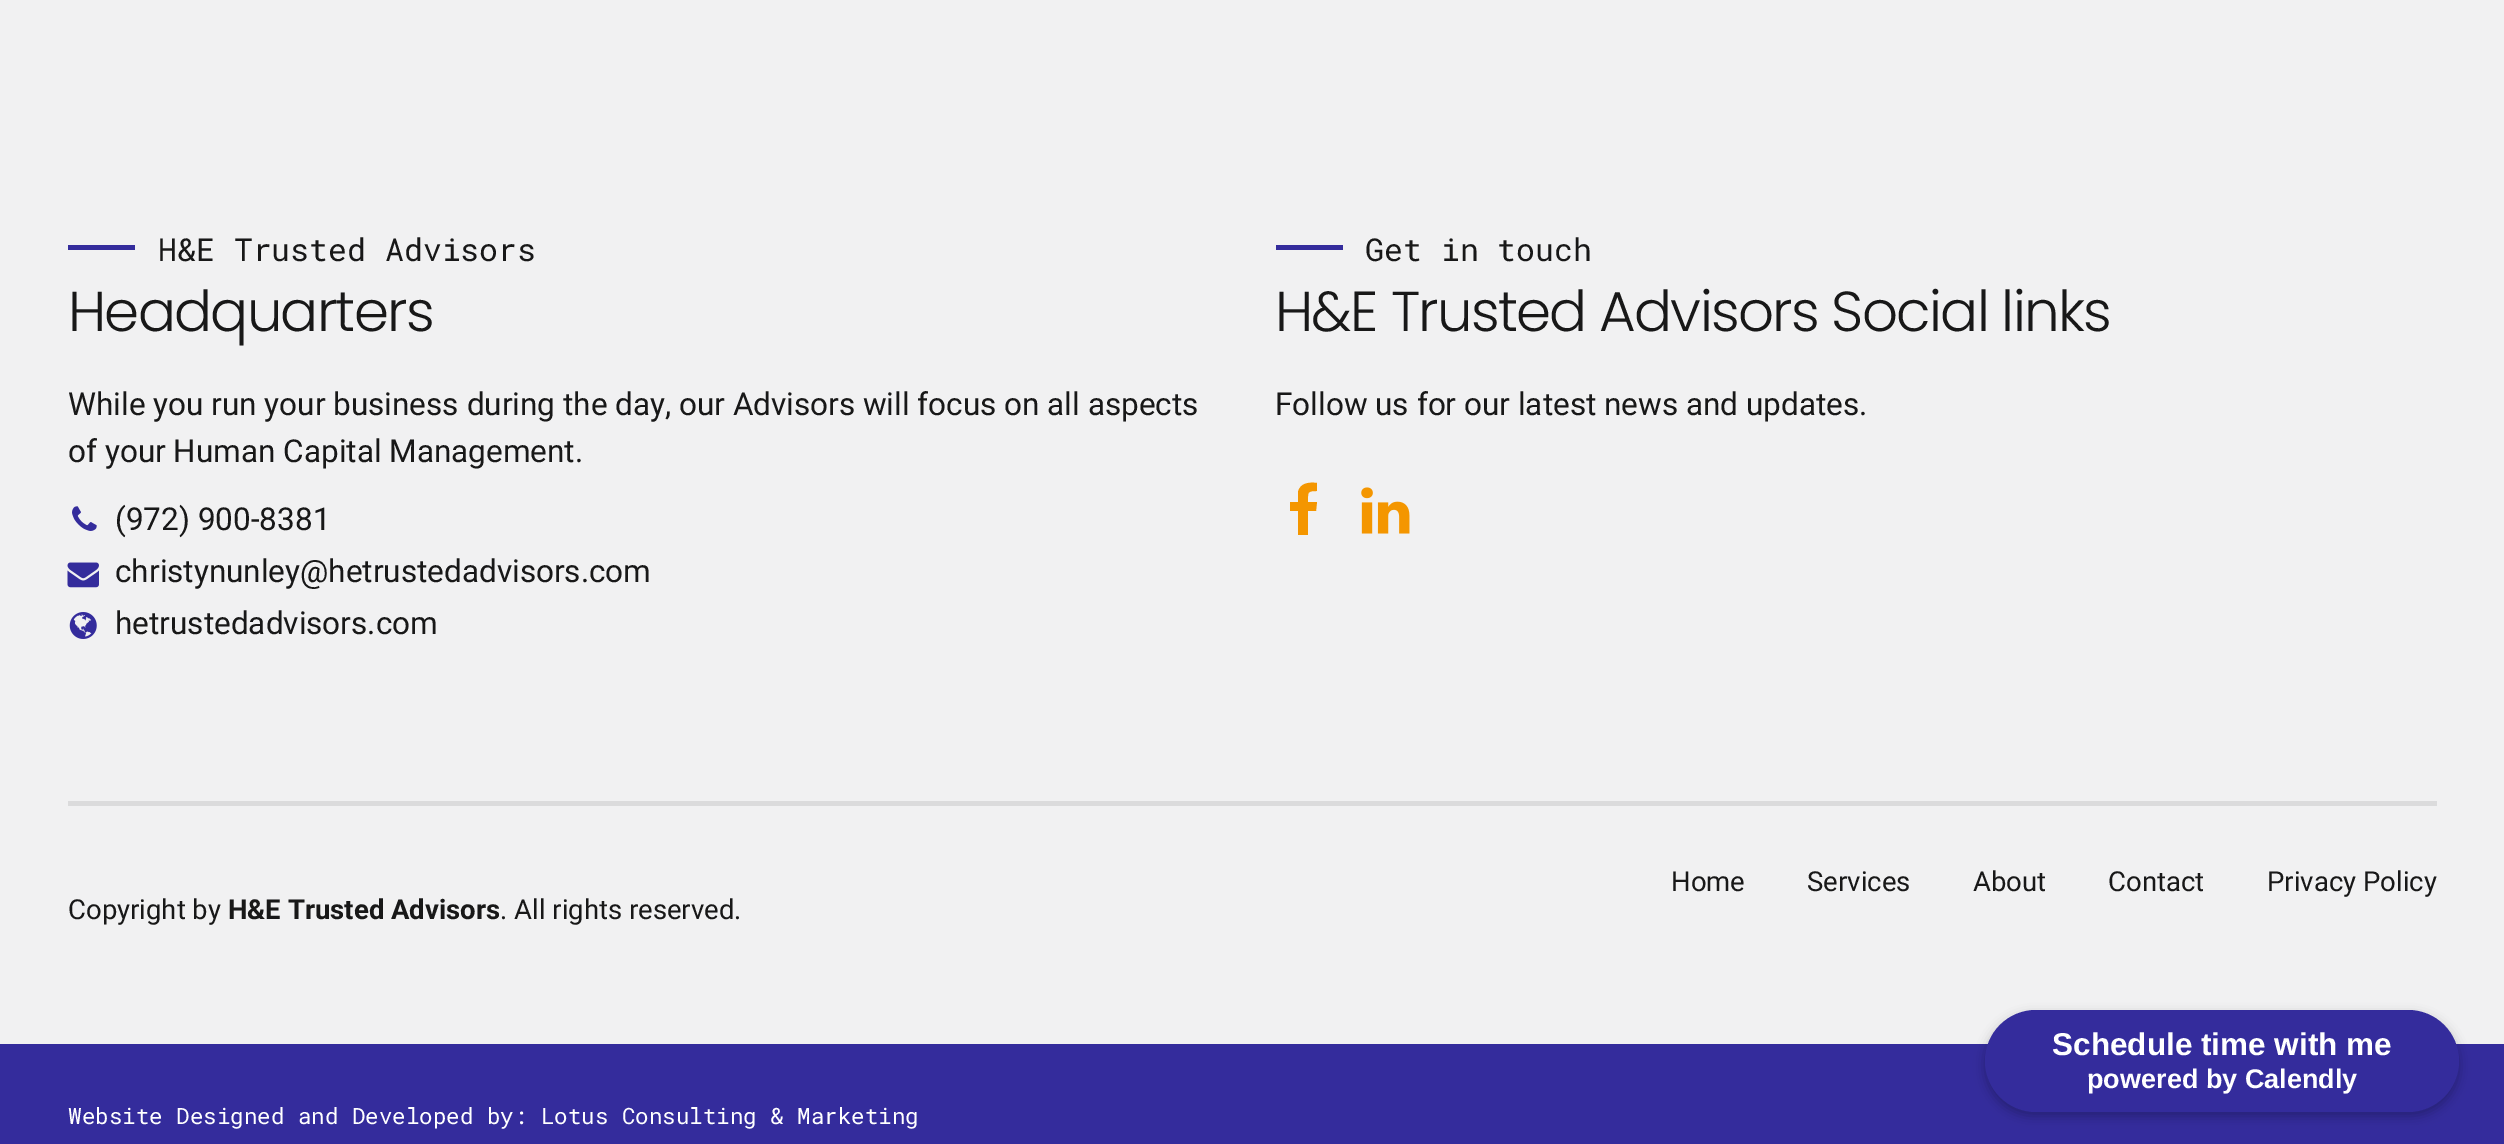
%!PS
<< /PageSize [2504 1144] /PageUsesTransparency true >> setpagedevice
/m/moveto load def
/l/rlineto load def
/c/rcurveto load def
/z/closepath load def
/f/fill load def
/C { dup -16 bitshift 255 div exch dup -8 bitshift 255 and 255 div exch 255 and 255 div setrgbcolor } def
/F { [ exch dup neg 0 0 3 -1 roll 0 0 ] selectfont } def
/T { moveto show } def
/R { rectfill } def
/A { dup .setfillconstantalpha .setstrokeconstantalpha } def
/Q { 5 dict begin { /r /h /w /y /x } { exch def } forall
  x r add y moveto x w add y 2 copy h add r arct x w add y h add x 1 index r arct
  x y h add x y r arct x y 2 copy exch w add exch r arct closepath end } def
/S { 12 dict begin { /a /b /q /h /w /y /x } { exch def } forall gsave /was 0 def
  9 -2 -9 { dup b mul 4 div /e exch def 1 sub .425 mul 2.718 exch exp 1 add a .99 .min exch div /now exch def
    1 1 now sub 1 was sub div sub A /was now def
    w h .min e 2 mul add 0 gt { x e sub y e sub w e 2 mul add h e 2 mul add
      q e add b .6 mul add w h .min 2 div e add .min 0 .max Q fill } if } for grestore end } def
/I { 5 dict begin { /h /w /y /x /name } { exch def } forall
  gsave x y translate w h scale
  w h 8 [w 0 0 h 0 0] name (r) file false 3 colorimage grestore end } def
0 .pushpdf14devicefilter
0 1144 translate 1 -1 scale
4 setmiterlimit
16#342C9C C
0 0 2504 1144 R
16#F1F1F2 C
0 0 2504 1044 R
16#342C9C C
68 245 67 5 R
/RobotoMono-Regular 31.5 F
16#181818 C
(H&E Trusted Advisors) 158 261 T
/Poppins-Light 56.25 F
68 331 m -1.7 0 (Headquarters) ashow
/Roboto-Regular 31.5 F
(While you run your business during the day, our Advisors will focus on all aspects) 68 415 T
(of your Human Capital Management.) 68 462 T
(1.rgb) 72 506 25 25 I
(\(972\) 900-8381) 115 530 T
(2.rgb) 67 562 32 26 I
(christynunley@hetrustedadvisors.com) 115 582 T
(3.rgb) 69 612 28 27 I
(hetrustedadvisors.com) 115 634 T
16#342C9C C
1276 245 67 5 R
/RobotoMono-Regular 31.5 F
16#181818 C
(Get in touch) 1365 261 T
/Poppins-Light 56.25 F
1275 331 m -1.7 0 (H&E Trusted Advisors Social links) ashow
/Roboto-Regular 31.5 F
(Follow us for our latest news and updates.) 1275 415 T
16#F49600 C
1317 483 m 0 8 l -10 0 -9 1 -9 11 c 9 0 l -1 9 l -8 0 l 0 24 l -10 0 l 0 -24 l -8 0 l 0 -9 l 8 0 l 0 -10 l 2 -9 11 -10 19 -9 c z f
(4.rgb) 1361 487 49 47 I
16#DBDBDC C
68 801 2369 5 R
/Roboto-Regular 27.5 F
16#181818 C
(Home) 1671 891 T
(Services) 1807 891 T
(About) 1973 891 T
(Contact) 2108 891 T
(Privacy Policy) 2267 891 T
(Copyright by) 68 919 T
/Roboto-Bold 27.5 F
(H&E Trusted Advisors) 228 919 T
/Roboto-Regular 27.5 F
(. All rights reserved.) 500 919 T
/RobotoMono-Regular 22.5 F
16#FFFFFF C
(Website Designed and Developed by: Lotus Consulting & Marketing) 68 1124 T
16#000000 C
1985 1015 474 101 50.5 5.5 .25 S
16#342C9C C
1985 1010 474 102 51 Q f
/LiberationSans-Bold 31.5 F
16#FFFFFF C
(Schedule time with me) 2052 1055 T
/LiberationSans-Bold 27 F
(powered by Calendly) 2087 1088 T
.poppdf14devicefilter showpage
